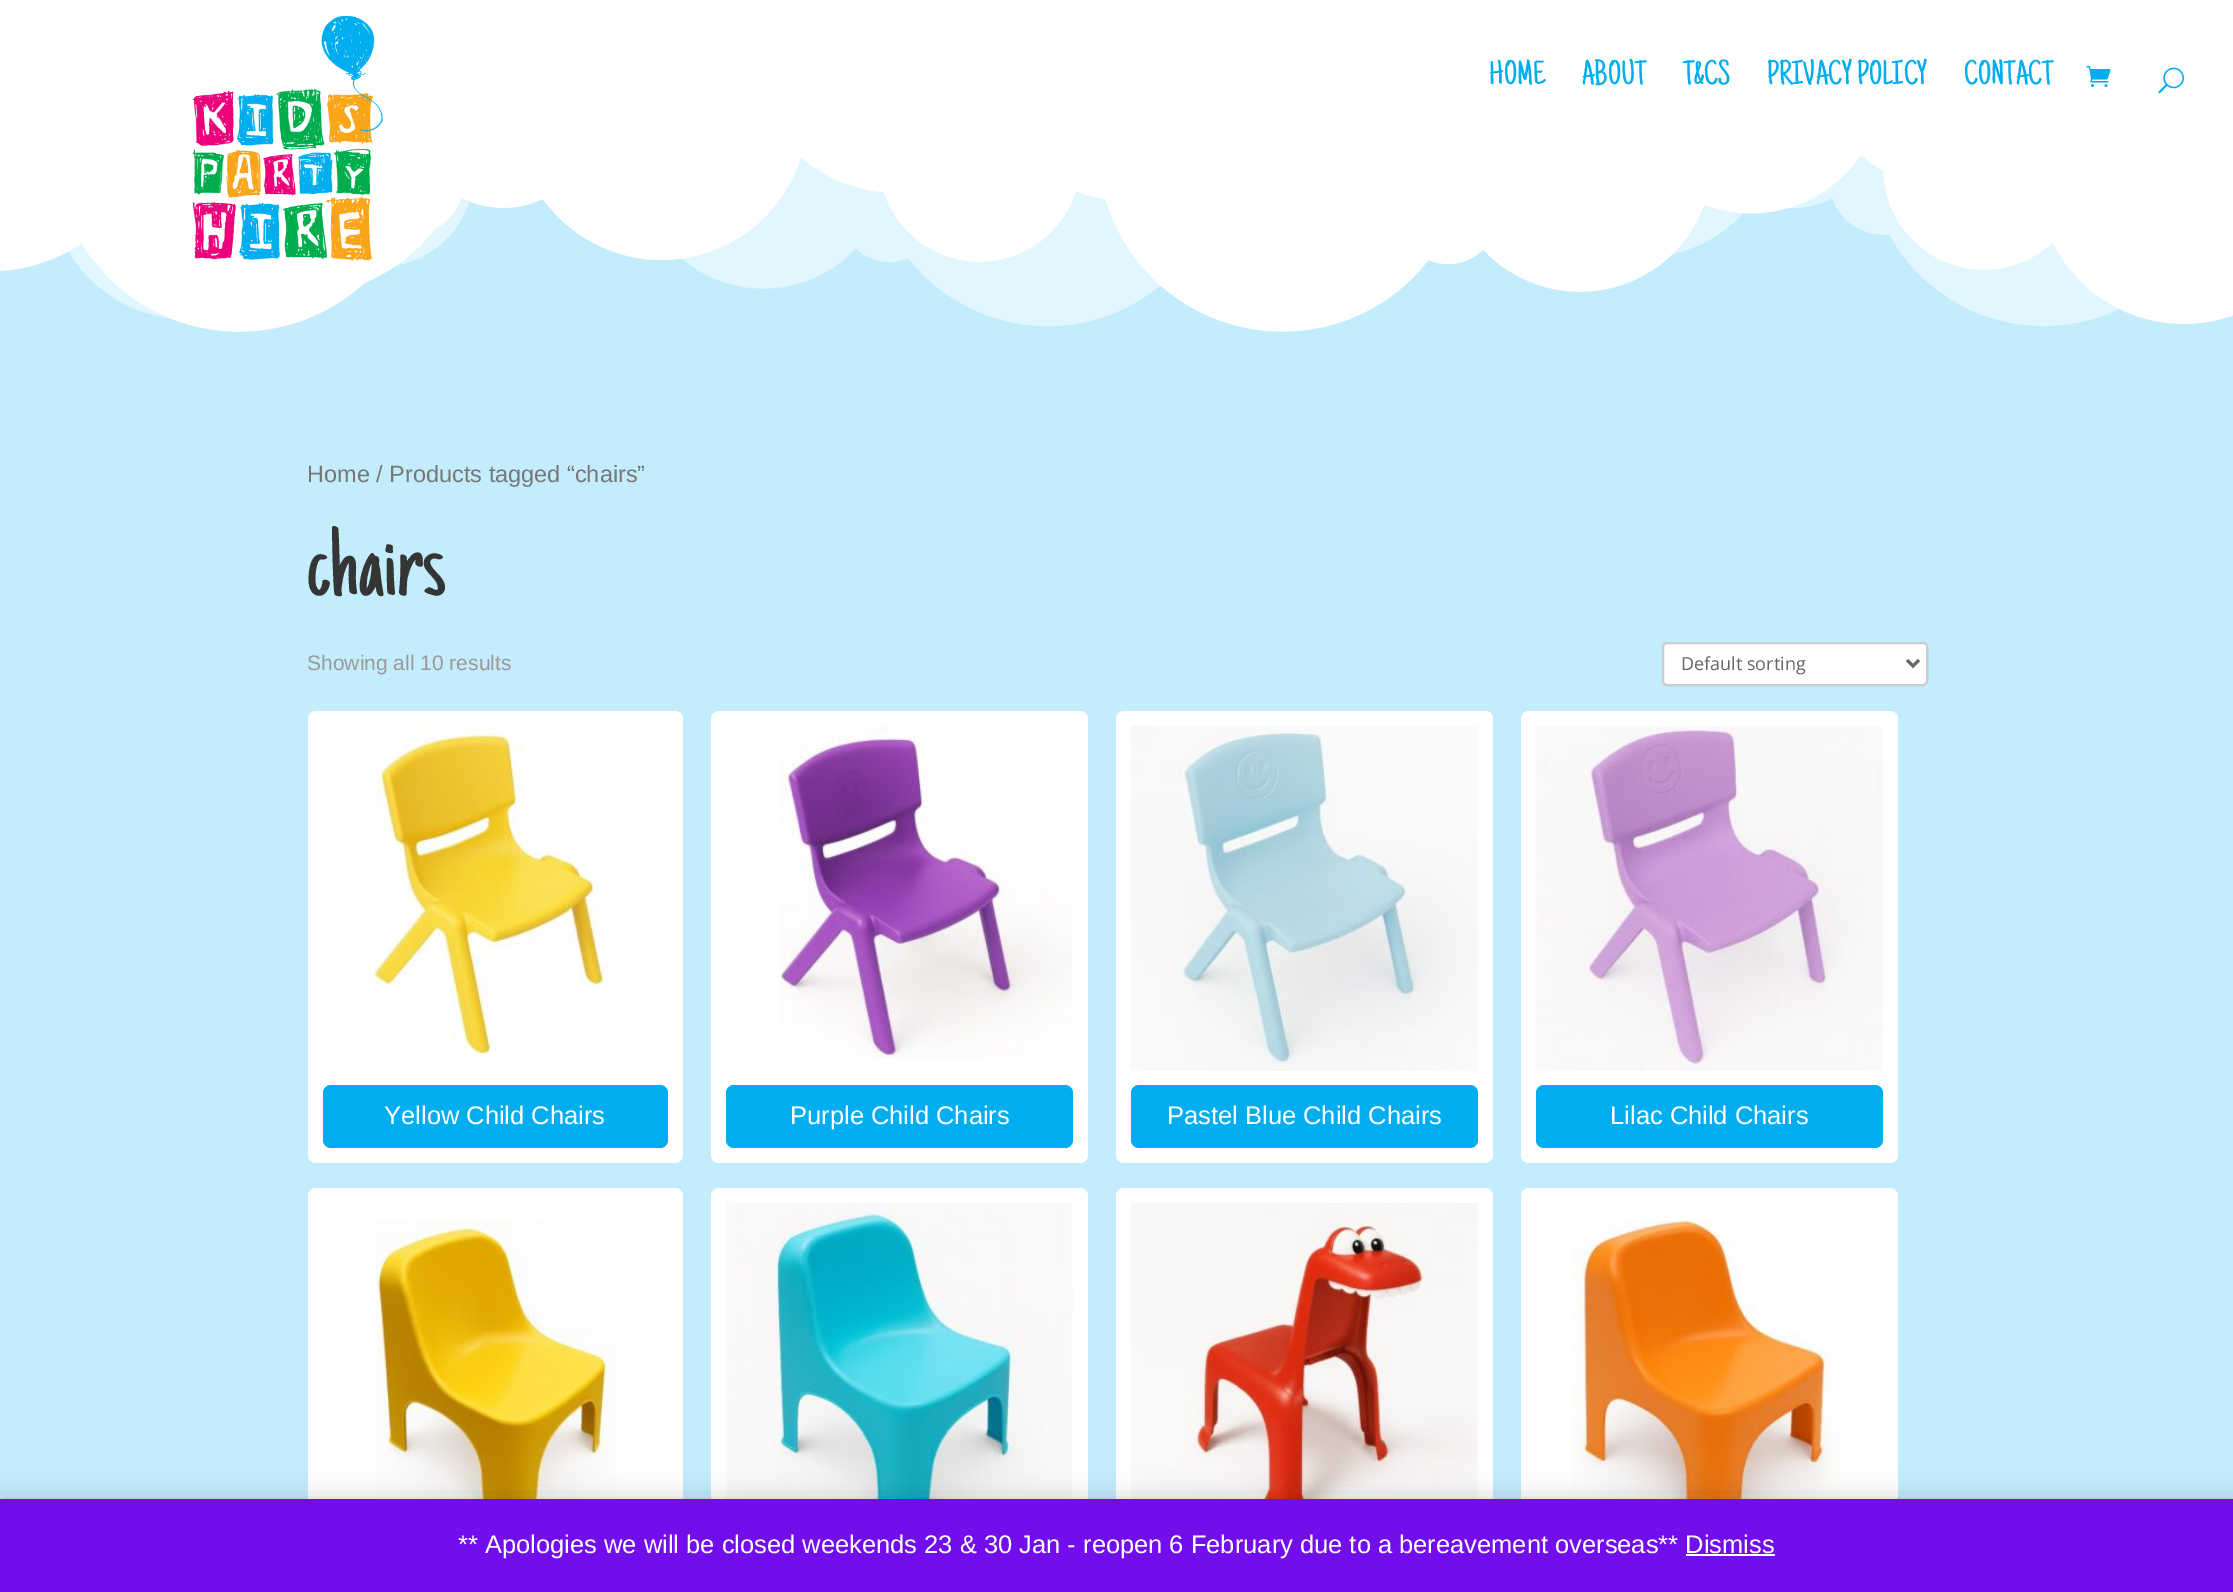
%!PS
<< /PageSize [2233 1592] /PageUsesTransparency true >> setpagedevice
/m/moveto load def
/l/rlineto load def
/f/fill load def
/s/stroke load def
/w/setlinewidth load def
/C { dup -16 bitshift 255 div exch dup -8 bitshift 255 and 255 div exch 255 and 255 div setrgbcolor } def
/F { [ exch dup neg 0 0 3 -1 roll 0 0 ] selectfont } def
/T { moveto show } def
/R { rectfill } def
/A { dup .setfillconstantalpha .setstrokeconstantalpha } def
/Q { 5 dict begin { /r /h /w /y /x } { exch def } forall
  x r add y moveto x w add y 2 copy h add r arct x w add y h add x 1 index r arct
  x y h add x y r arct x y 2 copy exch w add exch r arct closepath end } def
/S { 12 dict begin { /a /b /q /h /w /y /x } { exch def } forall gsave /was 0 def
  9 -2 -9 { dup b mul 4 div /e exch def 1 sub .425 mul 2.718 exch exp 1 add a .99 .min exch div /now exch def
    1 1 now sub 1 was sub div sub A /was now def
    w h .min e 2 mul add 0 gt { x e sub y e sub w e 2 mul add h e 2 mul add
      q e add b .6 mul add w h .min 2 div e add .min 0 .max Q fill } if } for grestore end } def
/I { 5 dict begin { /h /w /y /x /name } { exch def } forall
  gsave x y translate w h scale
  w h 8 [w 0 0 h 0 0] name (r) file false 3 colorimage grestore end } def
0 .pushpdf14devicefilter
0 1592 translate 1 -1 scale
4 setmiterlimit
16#FFFFFF C
0 0 2233 1592 R
16#C3ECFC C
0 156 2233 1343 R
(4.rgb) 0 156 2233 176 I
(1.rgb) 192 16 243 268 I
/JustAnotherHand-Regular 34.5 F
16#00ADEE C
(HOME) 1489 84 T
(ABOUT) 1582 84 T
(T&CS) 1683 84 T
(PRIVACY POLICY) 1767 84 T
(CONTACT) 1964 84 T
(2.rgb) 2086 66 25 21 I
(3.rgb) 2158 67 26 27 I
/LiberationSans-Regular 23.5 F
16#777777 C
(Home / Products tagged “chairs”) 307 482 T
/JustAnotherHand-Regular 106 F
16#353535 C
(chairs) 307 595 T
/LiberationSans-Regular 21 F
16#999999 C
(Showing all 10 results) 307 670 T
16#FFFFFF C
1662 642 266 44 5 Q f
0.2 A
16#000000 C
2 w
1663 643 264 42 4 Q s
1 A
16#666666 C
3 w
1907 660 m 6 6 l 6 -6 l s
/OpenSans-Regular 18 F
(Default sorting) 1681 670 T
16#FFFFFF C
308 711 375 452 8 Q f
(5.rgb) 360 726 257 332 I
16#00AEEF C
323 1085 345 63 8 Q f
/LiberationSans-Regular 25.5 F
16#FFFFFF C
(Yellow Child Chairs) 384 1124 T
711 711 377 452 8 Q f
(6.rgb) 780 726 293 332 I
16#00AEEF C
726 1085 347 63 8 Q f
16#FFFFFF C
(Purple Child Chairs) 790 1124 T
1116 711 377 452 8 Q f
(7.rgb) 1131 726 347 345 I
16#00AEEF C
1131 1085 347 63 8 Q f
16#FFFFFF C
(Pastel Blue Child Chairs) 1167 1124 T
1521 711 377 452 8 Q f
(8.rgb) 1536 726 347 345 I
16#00AEEF C
1536 1085 347 63 8 Q f
16#FFFFFF C
(Lilac Child Chairs) 1610 1124 T
308 1188 375 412 8 Q f
(9.rgb) 376 1220 241 279 I
711 1188 377 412 8 Q f
(10.rgb) 726 1203 347 296 I
1116 1188 377 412 8 Q f
(11.rgb) 1131 1203 347 296 I
1521 1188 377 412 8 Q f
(12.rgb) 1572 1220 269 279 I
16#000000 C
0 1500 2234 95 0 13 .2 S
16#720EEC C
0 1499 2233 93 R
16#FFFFFF C
(** Apologies we will be closed weekends 23 & 30 Jan - reopen 6 February due to a bereavement overseas** Dismiss) 458 1553 T
16#FCFBFE C
1686 1554 89 2 R
.poppdf14devicefilter showpage
